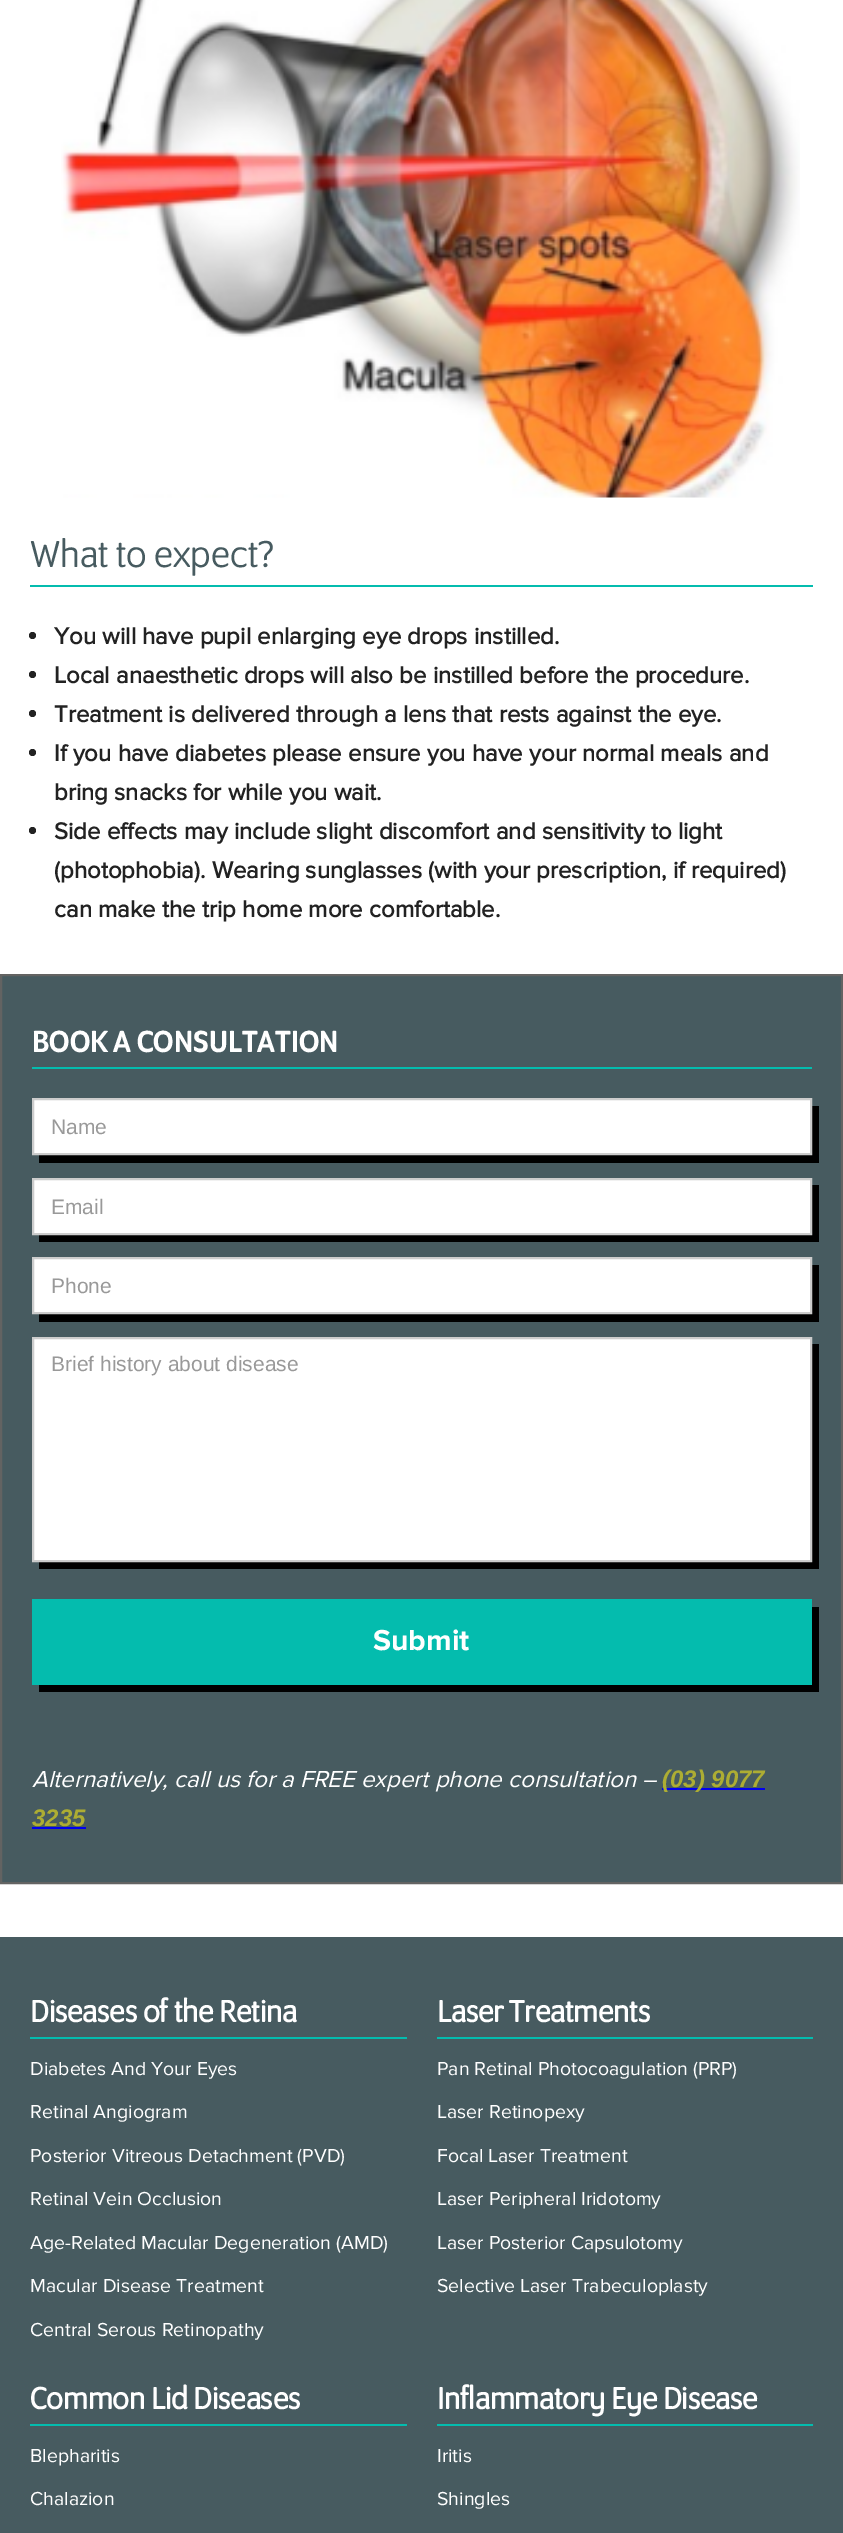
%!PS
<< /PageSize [843 2533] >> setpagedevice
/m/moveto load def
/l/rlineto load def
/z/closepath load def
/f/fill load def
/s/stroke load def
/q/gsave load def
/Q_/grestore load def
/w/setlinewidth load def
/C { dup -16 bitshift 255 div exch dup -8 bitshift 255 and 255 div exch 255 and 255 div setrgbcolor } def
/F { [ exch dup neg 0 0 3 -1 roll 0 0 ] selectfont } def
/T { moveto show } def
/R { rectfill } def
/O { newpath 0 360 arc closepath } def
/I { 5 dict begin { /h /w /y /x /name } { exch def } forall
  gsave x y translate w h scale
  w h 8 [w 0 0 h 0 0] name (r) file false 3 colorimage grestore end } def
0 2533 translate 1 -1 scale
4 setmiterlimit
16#FFFFFF C
0 0 843 2533 R
(1.rgb) 61 0 739 498 I
16#04BCAE C
30 585 783 2 R
/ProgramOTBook-Regular 40.5 F
16#475B60 C
(What to expect?) 30 567 T
16#222222 C
32.5 635.5 3.5 O f
/ProximaNova-Bold 24 F
(You will have pupil enlarging eye drops instilled.) 54 644 T
32.5 674.5 3.5 O f
(Local anaesthetic drops will also be instilled before the procedure.) 54 683 T
32.5 713.5 3.5 O f
(Treatment is delivered through a lens that rests against the eye.) 54 722 T
32.5 752.5 3.5 O f
(If you have diabetes please ensure you have your normal meals and) 54 761 T
(bring snacks for while you wait.) 54 800 T
32.5 830.5 3.5 O f
(Side effects may include slight discomfort and sensitivity to light) 54 839 T
(\(photophobia\). Wearing sunglasses \(with your prescription, if required\)) 54 878 T
(can make the trip home more comfortable.) 54 917 T
16#475B60 C
1 975 m 841 0 l 0 908 l -841 0 l z q f Q_
16#636362 C
2 w
s
16#04BCAE C
32 1067 780 2 R
/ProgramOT-Medium 33 F
16#FFFFFF C
(BOOK A CONSULTATION) 32 1052 T
16#000000 C
39 1155 m 0 8 l 780 0 l 0 -57 l -7 0 l 0 49 l z f
16#FFFFFF C
33 1099 m 778 0 l 0 55 l -778 0 l z q f Q_
16#CCCCCC C
s
/LiberationSans-Regular 21 F
16#999999 C
(Name) 51 1134 T
16#000000 C
39 1234 m 0 8 l 780 0 l 0 -57 l -7 0 l 0 49 l z f
16#FFFFFF C
33 1179 m 778 0 l 0 55 l -778 0 l z q f Q_
16#CCCCCC C
s
16#999999 C
(Email) 51 1214 T
16#000000 C
39 1314 m 0 8 l 780 0 l 0 -57 l -7 0 l 0 49 l z f
16#FFFFFF C
33 1258 m 778 0 l 0 55 l -778 0 l z q f Q_
16#CCCCCC C
s
16#999999 C
(Phone) 51 1293 T
16#000000 C
39 1562 m 0 7 l 780 0 l 0 -225 l -7 0 l 0 218 l z f
16#FFFFFF C
33 1338 m 778 0 l 0 223 l -778 0 l z q f Q_
16#CCCCCC C
s
16#999999 C
(Brief history about disease) 51 1371 T
16#000000 C
39 1684 m 0 8 l 780 0 l 0 -85 l -7 0 l 0 77 l z f
16#04BCAE C
32 1599 780 86 R
/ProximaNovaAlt-Bold 30 F
16#FFFFFF C
(Submit) 373 1650 T
/ProximaNova-Italic 24 F
(Alternatively, call us for a FREE expert phone consultation –) 32 1787 T
16#0000EE C
662 1788 103 2 R
/LiberationSans-BoldItalic 24 F
16#ADAD33 C
(\(03\) 9077) 662 1787 T
(3235) 32 1826 T
16#0000EE C
32 1827 54 2 R
16#475B60 C
0 1937 843 596 R
/ProgramOTBook-Bold 33 F
16#FFFFFF C
(Diseases of the Retina) 30 2022 T
16#04BCAE C
30 2037 377 2 R
/ProximaNova-Regular 19.5 F
16#FFFFFF C
(Diabetes And Your Eyes) 30 2075 T
(Retinal Angiogram) 30 2118 T
(Posterior Vitreous Detachment \(PVD\)) 30 2162 T
(Retinal Vein Occlusion) 30 2205 T
(Age-Related Macular Degeneration \(AMD\)) 30 2249 T
(Macular Disease Treatment) 30 2292 T
(Central Serous Retinopathy) 30 2336 T
/ProgramOTBook-Bold 33 F
(Laser Treatments) 437 2022 T
16#04BCAE C
437 2037 376 2 R
/ProximaNova-Regular 19.5 F
16#FFFFFF C
(Pan Retinal Photocoagulation \(PRP\)) 437 2075 T
(Laser Retinopexy) 437 2118 T
(Focal Laser Treatment) 437 2162 T
(Laser Peripheral Iridotomy) 437 2205 T
(Laser Posterior Capsulotomy) 437 2249 T
(Selective Laser Trabeculoplasty) 437 2292 T
/ProgramOTBook-Bold 33 F
(Common Lid Diseases) 30 2409 T
16#04BCAE C
30 2424 377 2 R
/ProximaNova-Regular 19.5 F
16#FFFFFF C
(Blepharitis) 30 2462 T
(Chalazion) 30 2505 T
/ProgramOTBook-Bold 33 F
(Inflammatory Eye Disease) 437 2409 T
16#04BCAE C
437 2424 376 2 R
/ProximaNova-Regular 19.5 F
16#FFFFFF C
(Iritis) 437 2462 T
(Shingles) 437 2505 T
showpage
